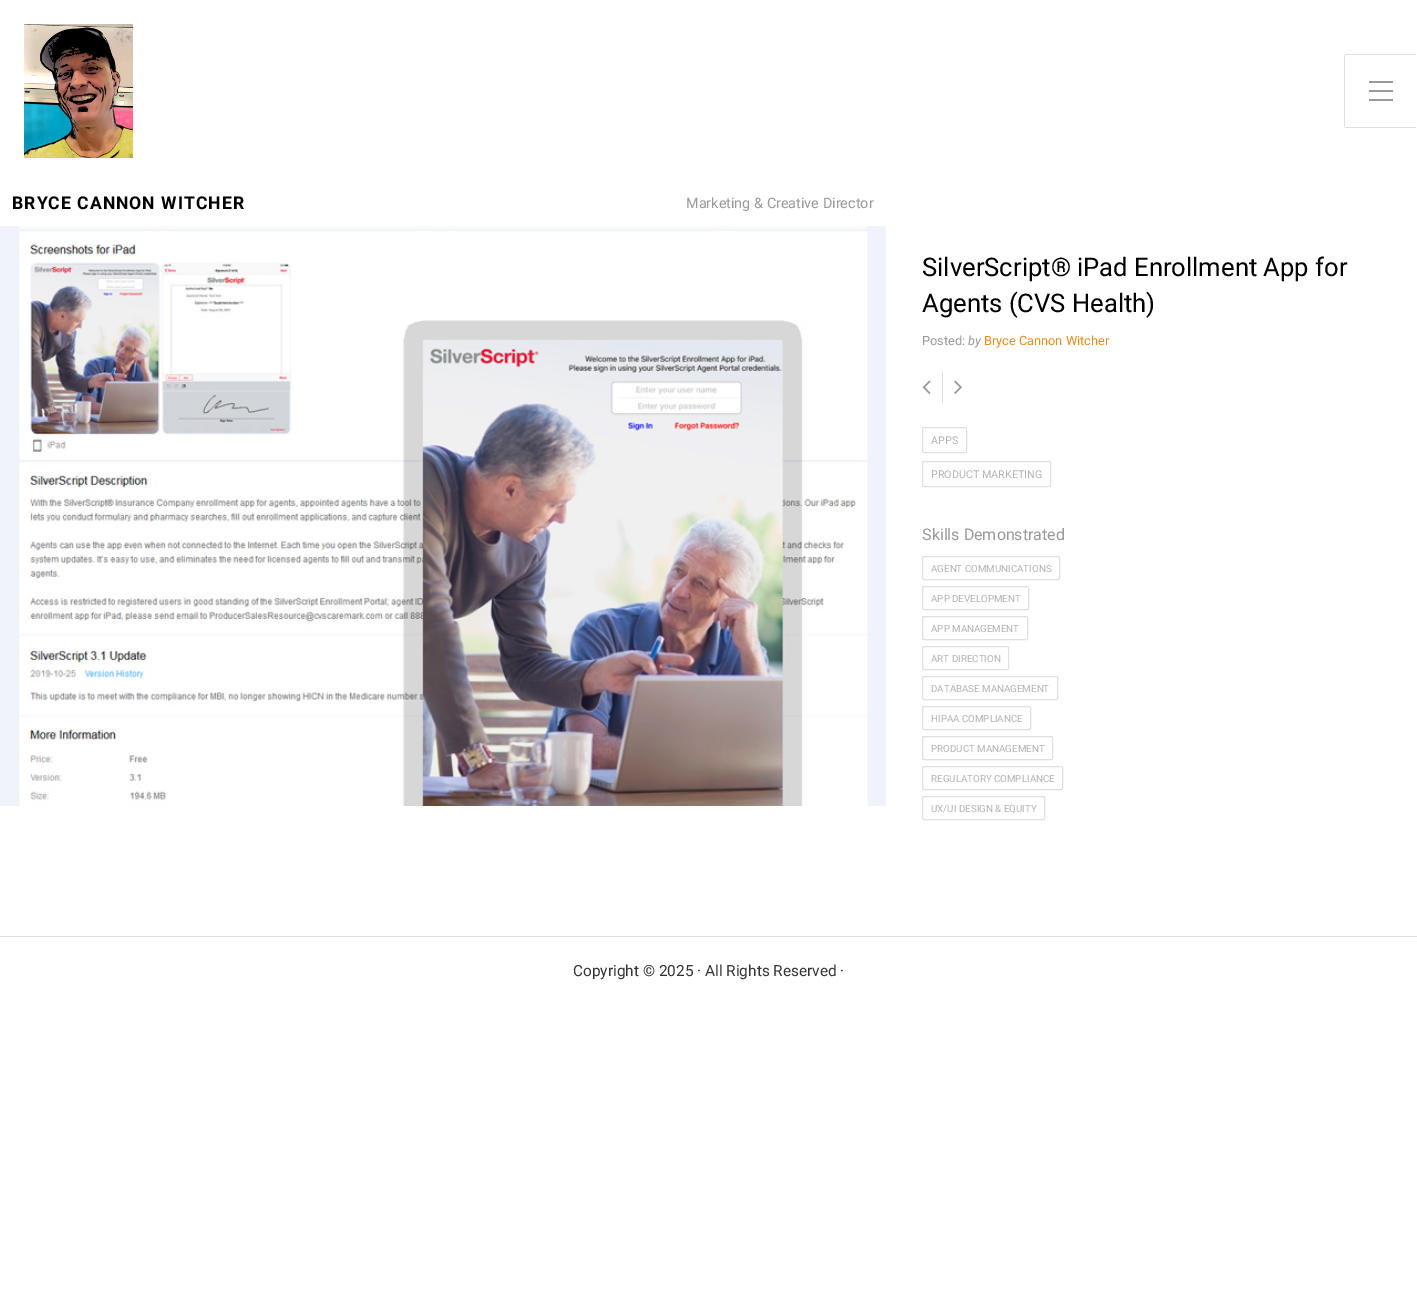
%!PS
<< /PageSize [1417 1299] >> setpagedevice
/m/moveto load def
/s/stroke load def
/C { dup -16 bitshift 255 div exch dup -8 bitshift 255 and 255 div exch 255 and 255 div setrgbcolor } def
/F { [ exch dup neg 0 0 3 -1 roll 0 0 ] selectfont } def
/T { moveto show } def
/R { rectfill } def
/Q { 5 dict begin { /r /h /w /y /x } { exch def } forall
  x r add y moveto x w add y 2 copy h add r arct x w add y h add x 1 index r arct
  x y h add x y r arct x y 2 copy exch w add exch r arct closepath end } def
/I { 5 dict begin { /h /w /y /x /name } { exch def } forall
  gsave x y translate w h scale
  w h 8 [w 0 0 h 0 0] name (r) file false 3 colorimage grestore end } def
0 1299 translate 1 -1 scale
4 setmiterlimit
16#FFFFFF C
0 0 1417 1299 R
(1.rgb) 24 24 109 134 I
16#E0E0E0 C
1345 54 71 1 R
1345 127 71 1 R
1344 55 1 72 R
16#999999 C
1369 81 24 2 R
1369 90 24 2 R
1369 99 24 2 R
/Roboto-Bold 17.6 F
16#000000 C
12 209 m 1 0 (BRYCE CANNON WITCHER) ashow
/Roboto-Regular 14.4 F
16#999999 C
(Marketing & Creative Director) 686 208 T
(2.rgb) 0 226 886 580 I
/Roboto-Regular 25.6 F
16#000000 C
(SilverScript® iPad Enrollment App for) 922 276 T
(Agents \(CVS Health\)) 922 312 T
/Roboto-Regular 12.75 F
16#999999 C
(Posted:) 922 345 T
/Roboto-Italic 12.75 F
(by) 968 345 T
/Roboto-Regular 12.75 F
16#EB8B1A C
(Bryce Cannon Witcher) 984 345 T
(3.rgb) 922 380 9 14 I
16#E0E0E0 C
942 371 1 32 R
(4.rgb) 954 380 8 14 I
922.5 427.5 44 25 1.5 Q s
/Roboto-Regular 10.75 F
16#B3B3B3 C
(APPS) 931 444 T
16#E0E0E0 C
922.5 461.5 128 25 1.5 Q s
16#B3B3B3 C
(PRODUCT MARKETING) 931 478 T
/Roboto-Regular 16 F
16#999999 C
(Skills Demonstrated) 922 540 T
16#E0E0E0 C
922.5 556.5 137 23 1.5 Q s
/Roboto-Regular 9.75 F
16#B3B3B3 C
(AGENT COMMUNICATIONS) 931 572 T
16#E0E0E0 C
922.5 586.5 106 23 1.5 Q s
16#B3B3B3 C
(APP DEVELOPMENT) 931 602 T
16#E0E0E0 C
922.5 616.5 105 23 1.5 Q s
16#B3B3B3 C
(APP MANAGEMENT) 931 632 T
16#E0E0E0 C
922.5 646.5 86 23 1.5 Q s
16#B3B3B3 C
(ART DIRECTION) 931 662 T
16#E0E0E0 C
922.5 676.5 135 23 1.5 Q s
16#B3B3B3 C
(DATABASE MANAGEMENT) 931 692 T
16#E0E0E0 C
922.5 706.5 108 23 1.5 Q s
16#B3B3B3 C
(HIPAA COMPLIANCE) 931 722 T
16#E0E0E0 C
922.5 736.5 130 23 1.5 Q s
16#B3B3B3 C
(PRODUCT MANAGEMENT) 931 752 T
16#E0E0E0 C
922.5 766.5 140 23 1.5 Q s
16#B3B3B3 C
(REGULATORY COMPLIANCE) 931 782 T
16#E0E0E0 C
922.5 796.5 122 23 1.5 Q s
16#B3B3B3 C
(UX/UI DESIGN & EQUITY) 931 812 T
16#E0E0E0 C
0 936 1417 1 R
/Roboto-Regular 15.4 F
16#333333 C
(Copyright © 2025 · All Rights Reserved ·) 573 976 T
showpage
